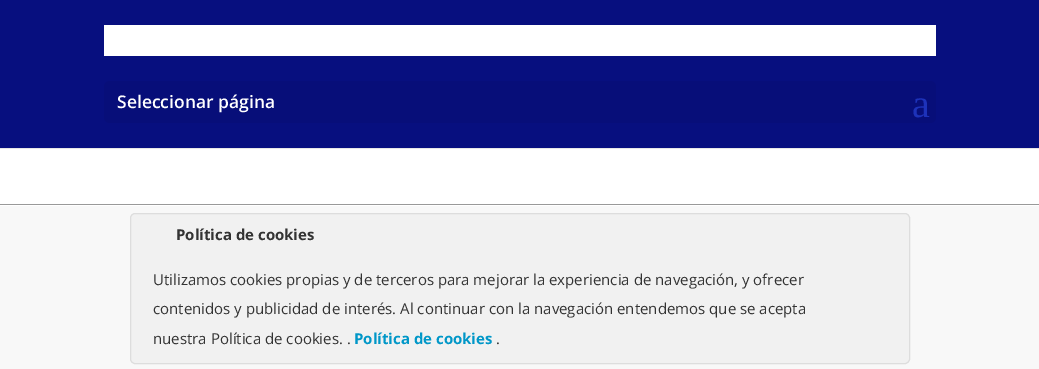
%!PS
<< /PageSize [1039 369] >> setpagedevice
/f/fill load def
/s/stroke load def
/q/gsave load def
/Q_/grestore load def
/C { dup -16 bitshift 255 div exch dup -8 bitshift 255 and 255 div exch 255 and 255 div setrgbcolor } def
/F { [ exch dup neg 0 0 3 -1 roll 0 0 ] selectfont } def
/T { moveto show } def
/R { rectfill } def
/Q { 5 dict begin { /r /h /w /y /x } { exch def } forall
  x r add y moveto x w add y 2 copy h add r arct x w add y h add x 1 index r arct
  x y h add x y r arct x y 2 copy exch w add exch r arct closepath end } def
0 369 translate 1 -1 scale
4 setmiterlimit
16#FFFFFF C
0 0 1039 369 R
16#E6E6E6 C
0 148 1039 1 R
16#070F7F C
0 0 1039 148 R
16#FFFFFF C
104 25 832 31 R
16#070E79 C
104 81 832 42 6 Q f
/OpenSans-SemiBold 17.5 F
16#FFFFFF C
(Seleccionar página) 117 108 T
/LiberationSerif-Regular 40 F
16#1D32BA C
(a) 912 117 T
16#999999 C
0 204 1039 1 R
16#F8F8F8 C
0 206 1039 163 R
16#F1F1F1 C
130.5 213.5 779 150 4.5 Q q f Q_
16#DDDDDD C
s
/OpenSans-Bold 15 F
16#333333 C
(Política de cookies) 176 240 T
/OpenSans-Regular 15 F
(Utilizamos cookies propias y de terceros para mejorar la experiencia de navegación, y ofrecer) 153 285 T
(contenidos y publicidad de interés. Al continuar con la navegación entendemos que se acepta) 153 314 T
(nuestra Política de cookies. .) 153 344 T
/OpenSans-Bold 15 F
16#0097C8 C
(Política de cookies) 354 344 T
/OpenSans-Regular 15 F
16#333333 C
(.) 496 344 T
showpage
